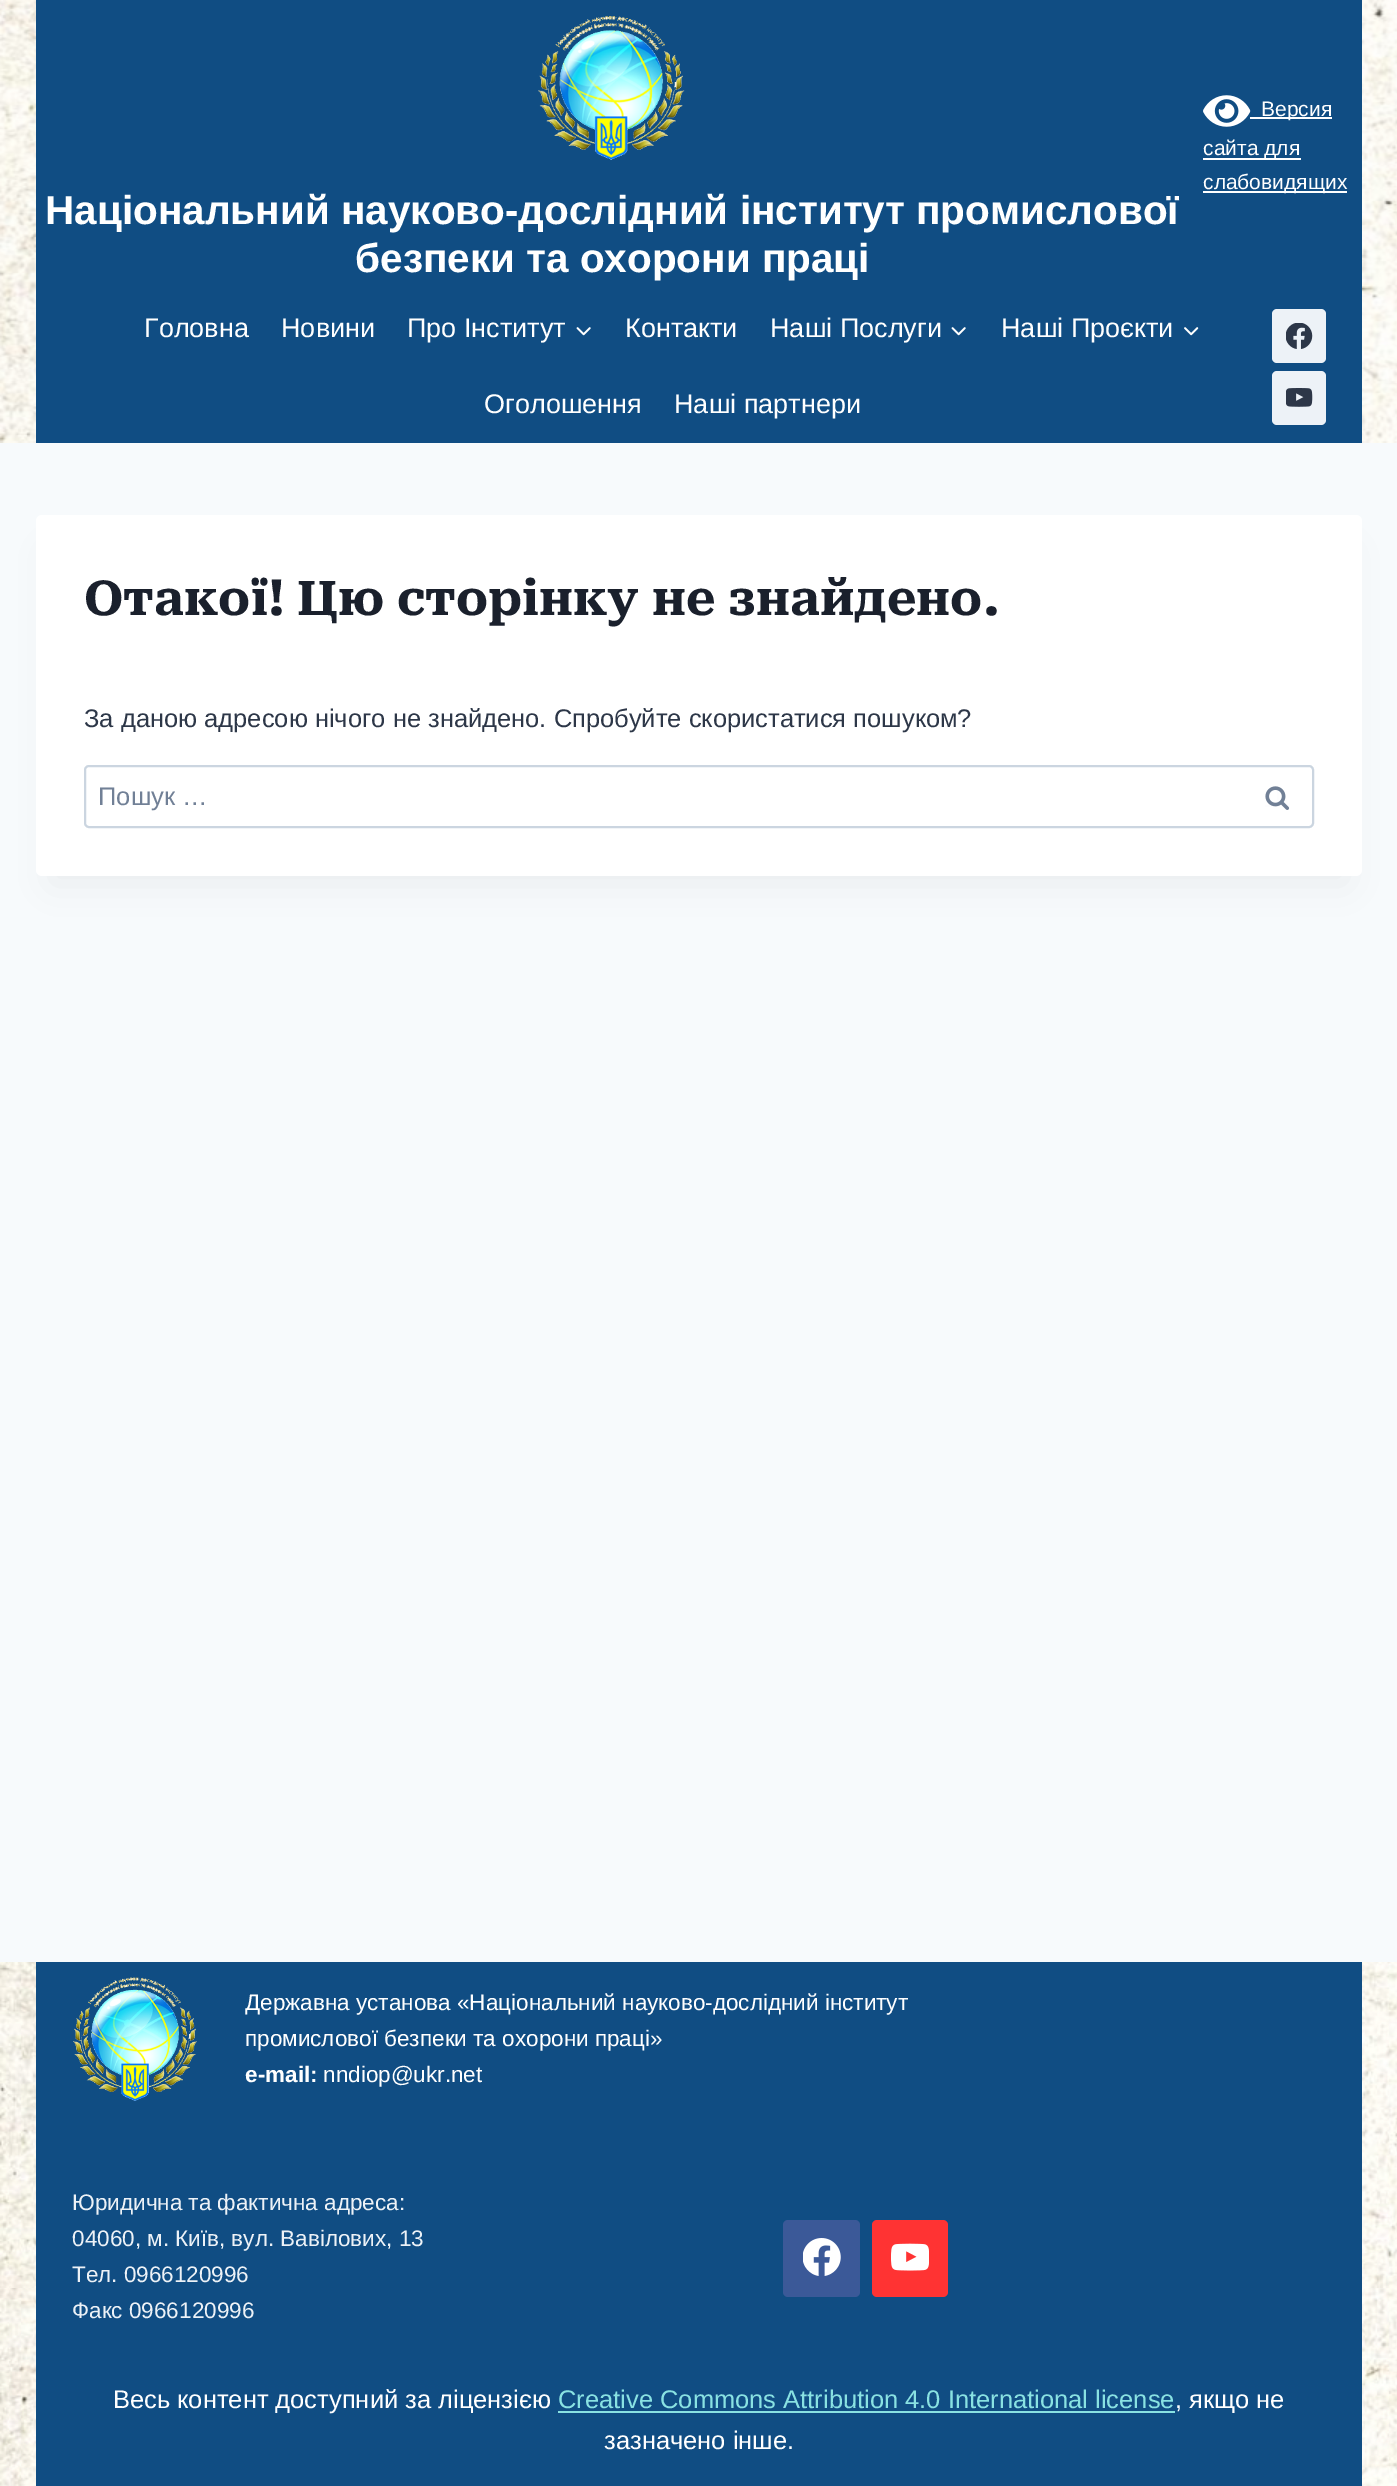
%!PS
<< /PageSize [1397 2486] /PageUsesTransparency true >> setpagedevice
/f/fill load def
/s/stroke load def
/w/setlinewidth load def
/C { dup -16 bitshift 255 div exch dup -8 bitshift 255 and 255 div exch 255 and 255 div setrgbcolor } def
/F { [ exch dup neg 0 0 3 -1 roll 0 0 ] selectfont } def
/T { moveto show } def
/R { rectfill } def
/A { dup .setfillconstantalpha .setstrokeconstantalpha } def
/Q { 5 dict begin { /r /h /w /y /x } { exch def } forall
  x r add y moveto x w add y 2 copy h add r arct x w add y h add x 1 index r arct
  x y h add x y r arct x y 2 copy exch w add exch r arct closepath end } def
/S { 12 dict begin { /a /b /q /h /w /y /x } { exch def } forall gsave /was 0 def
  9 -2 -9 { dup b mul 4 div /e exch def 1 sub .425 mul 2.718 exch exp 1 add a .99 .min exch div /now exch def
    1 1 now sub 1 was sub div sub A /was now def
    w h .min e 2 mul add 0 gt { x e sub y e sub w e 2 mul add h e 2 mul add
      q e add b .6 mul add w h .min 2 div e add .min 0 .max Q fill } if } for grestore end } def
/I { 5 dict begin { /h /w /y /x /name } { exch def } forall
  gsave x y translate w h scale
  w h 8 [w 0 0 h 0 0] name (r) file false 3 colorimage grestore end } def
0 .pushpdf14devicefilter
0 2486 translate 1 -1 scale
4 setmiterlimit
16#F7FAFC C
0 0 1397 2486 R
(1.rgb) 0 0 1397 443 I
16#104D83 C
36 0 1326 443 R
16#FFFFFF C
1250 117 82 2 R
(2.rgb) 1203 95 48 32 I
/LiberationSans-Regular 21 F
(Версия) 1261 116 T
1203 158 98 2 R
(сайта для) 1203 155 T
1203 191 144 2 R
(слабовидящих) 1203 189 T
(3.rgb) 538 16 147 144 I
/LiberationSans-Bold 40.5 F
(Національний науково-дослідний інститут промислової) 45 224 T
(безпеки та охорони праці) 355 272 T
/LiberationSans-Regular 27 F
(Головна) 144 337 T
(Новини) 281 337 T
(Про Інститут) 407 337 T
(4.rgb) 576 327 15 9 I
(Контакти) 625 337 T
(Наші Послуги) 770 337 T
(4.rgb) 951 327 15 9 I
(Наші Проєкти) 1001 337 T
(5.rgb) 1184 327 15 9 I
(Оголошення) 484 413 T
(Наші партнери) 674 413 T
16#EDF2F7 C
1272 309 54 54 5 Q f
(6.rgb) 1286 323 27 26 I
1272 371 54 54 5 Q f
(7.rgb) 1286 388 27 19 I
16#000000 C
51 552 1296 332 0 19 .05 S
16#FFFFFF C
36 515 1326 361 6 Q f
/RobotoSerif-Bold 48 F
16#1A202C C
(Отакої! Цю сторінку не знайдено.) 84 615 T
/LiberationSans-Regular 25.5 F
16#2D3748 C
(За даною адресою нічого не знайдено. Спробуйте скористатися пошуком?) 84 727 T
16#CBD5E0 C
2 w
85 766 1228 61 4 Q s
16#718096 C
(Пошук …) 98 805 T
(8.rgb) 1265 786 25 24 I
(9.rgb) 0 1962 1397 524 I
16#104D83 C
36 1962 1326 524 R
(10.rgb) 73 1977 124 124 I
/LiberationSans-Regular 22.5 F
16#FFFFFF C
(Державна установа «Національний науково-дослідний інститут) 245 2010 T
(промислової безпеки та охорони праці») 245 2046 T
/LiberationSans-Bold 22.5 F
(e-mail:) 245 2082 T
/LiberationSans-Regular 22.5 F
(nndiop@ukr.net) 323 2082 T
16#EDF2F7 C
(Юридична та фактична адреса:) 72 2210 T
(04060, м. Київ, вул. Вавілових, 13) 72 2246 T
(Тел. 0966120996) 72 2282 T
(Факс 0966120996) 72 2318 T
16#3B5998 C
783 2220 77 77 5 Q f
(11.rgb) 803 2238 38 38 I
16#FF3333 C
872 2220 76 77 5 Q f
(12.rgb) 891 2243 38 28 I
/LiberationSans-Regular 25.5 F
16#FFFFFF C
(Весь контент доступний за ліцензією) 113 2408 T
16#89E2E2 C
(Creative Commons Attribution 4.0 International license) 558 2408 T
558 2411 617 2 R
16#FFFFFF C
(, якщо не) 1175 2408 T
(зазначено інше.) 604 2449 T
.poppdf14devicefilter showpage
